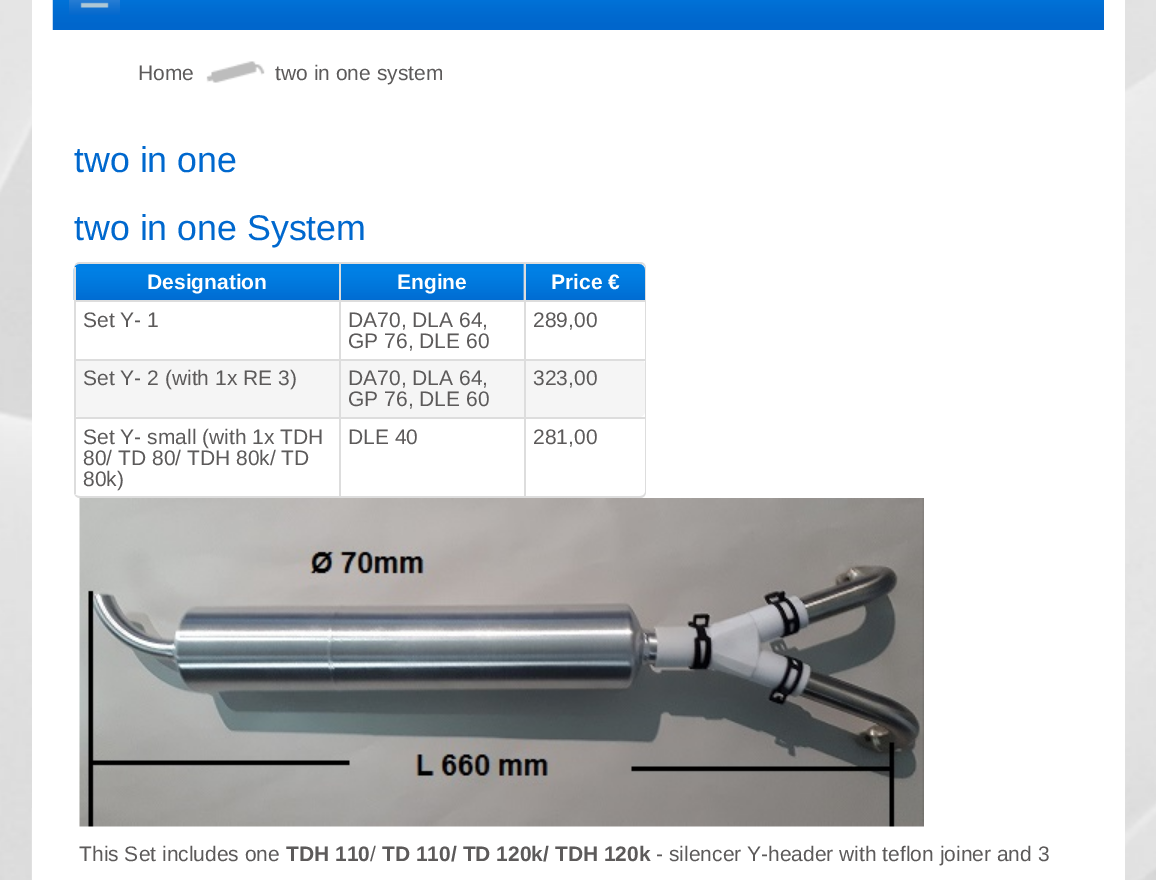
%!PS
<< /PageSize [1156 880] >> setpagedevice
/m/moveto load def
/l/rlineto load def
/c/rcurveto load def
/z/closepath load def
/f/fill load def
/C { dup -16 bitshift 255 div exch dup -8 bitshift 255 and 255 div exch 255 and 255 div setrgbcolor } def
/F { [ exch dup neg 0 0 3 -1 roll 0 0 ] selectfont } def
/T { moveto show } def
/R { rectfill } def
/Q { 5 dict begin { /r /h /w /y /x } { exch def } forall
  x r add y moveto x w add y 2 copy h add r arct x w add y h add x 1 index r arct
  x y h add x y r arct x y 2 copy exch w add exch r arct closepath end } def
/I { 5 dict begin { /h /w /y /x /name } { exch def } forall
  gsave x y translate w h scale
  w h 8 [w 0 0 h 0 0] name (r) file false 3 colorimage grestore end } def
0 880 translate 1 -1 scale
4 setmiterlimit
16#FFFFFF C
0 0 1156 880 R
(1.rgb) 0 0 1156 880 I
32 0 1093 880 R
16#E0E0E0 C
31 808 1 72 R
(2.rgb) 52 0 1052 30 I
(3.rgb) 69 0 51 15 I
(4.rgb) 206 61 59 22 I
/LiberationSans-Regular 21 F
16#5C5A5A C
(Home) 138 80 T
(two in one system) 275 80 T
/LiberationSans-Regular 35.75 F
16#0068CE C
(two in one) 74 172 T
(two in one System) 74 240 T
16#DDDDDD C
80 262 m 560 0 l 4 0 6 3 6 6 c 0 224 l 0 3 -2 6 -6 6 c -560 0 l -4 0 -6 -3 -6 -6 c 0 -224 l 0 -3 2 -6 6 -6 c z 80 264 m 560 0 l 3 0 5 2 5 4 c 0 224 l 0 2 -2 4 -5 4 c -560 0 l -4 0 -6 -2 -6 -4 c 0 -224 l 0 -2 2 -4 6 -4 c z eofill
(5.rgb) 73 264 266 36 I
74 267 2 33 R
/LiberationSans-Bold 21 F
16#FFFFFF C
(Designation) 147 289 T
(6.rgb) 341 264 183 36 I
16#DDDDDD C
339 264 2 36 R
16#FFFFFF C
(Engine) 397 289 T
(7.rgb) 523 264 122 36 I
16#DDDDDD C
524 264 2 36 R
16#FFFFFF C
(Price €) 551 289 T
16#DDDDDD C
74 300 571 2 R
74 300 2 59 R
/LiberationSans-Regular 21 F
16#5C5A5A C
(Set Y- 1) 83 327 T
16#DDDDDD C
339 300 2 59 R
16#5C5A5A C
(DA70, DLA 64,) 348 327 T
(GP 76, DLE 60) 348 348 T
16#DDDDDD C
524 300 2 59 R
16#5C5A5A C
(289,00) 533 327 T
16#F5F5F5 C
74 359 571 58 6 Q f
16#DDDDDD C
74 359 571 2 R
74 359 2 58 R
16#5C5A5A C
(Set Y- 2 \(with 1x RE 3\)) 83 385 T
16#DDDDDD C
339 359 2 58 R
16#5C5A5A C
(DA70, DLA 64,) 348 385 T
(GP 76, DLE 60) 348 406 T
16#DDDDDD C
524 359 2 58 R
16#5C5A5A C
(323,00) 533 385 T
16#DDDDDD C
74 417 571 2 R
74 417 2 77 R
16#5C5A5A C
(Set Y- small \(with 1x TDH) 83 444 T
(80/ TD 80/ TDH 80k/ TD) 83 465 T
(80k\)) 83 486 T
16#DDDDDD C
339 417 2 80 R
16#5C5A5A C
(DLE 40) 348 444 T
16#DDDDDD C
524 417 2 80 R
16#5C5A5A C
(281,00) 533 444 T
(8.rgb) 79 498 845 329 I
(This Set includes one) 79 861 T
/LiberationSans-Bold 21 F
(TDH 110) 286 861 T
/LiberationSans-Regular 21 F
(/) 370 861 T
/LiberationSans-Bold 21 F
(TD 110/ TD 120k/ TDH 120k) 382 861 T
/LiberationSans-Regular 21 F
(- silencer Y-header with teflon joiner and 3) 656 861 T
showpage
